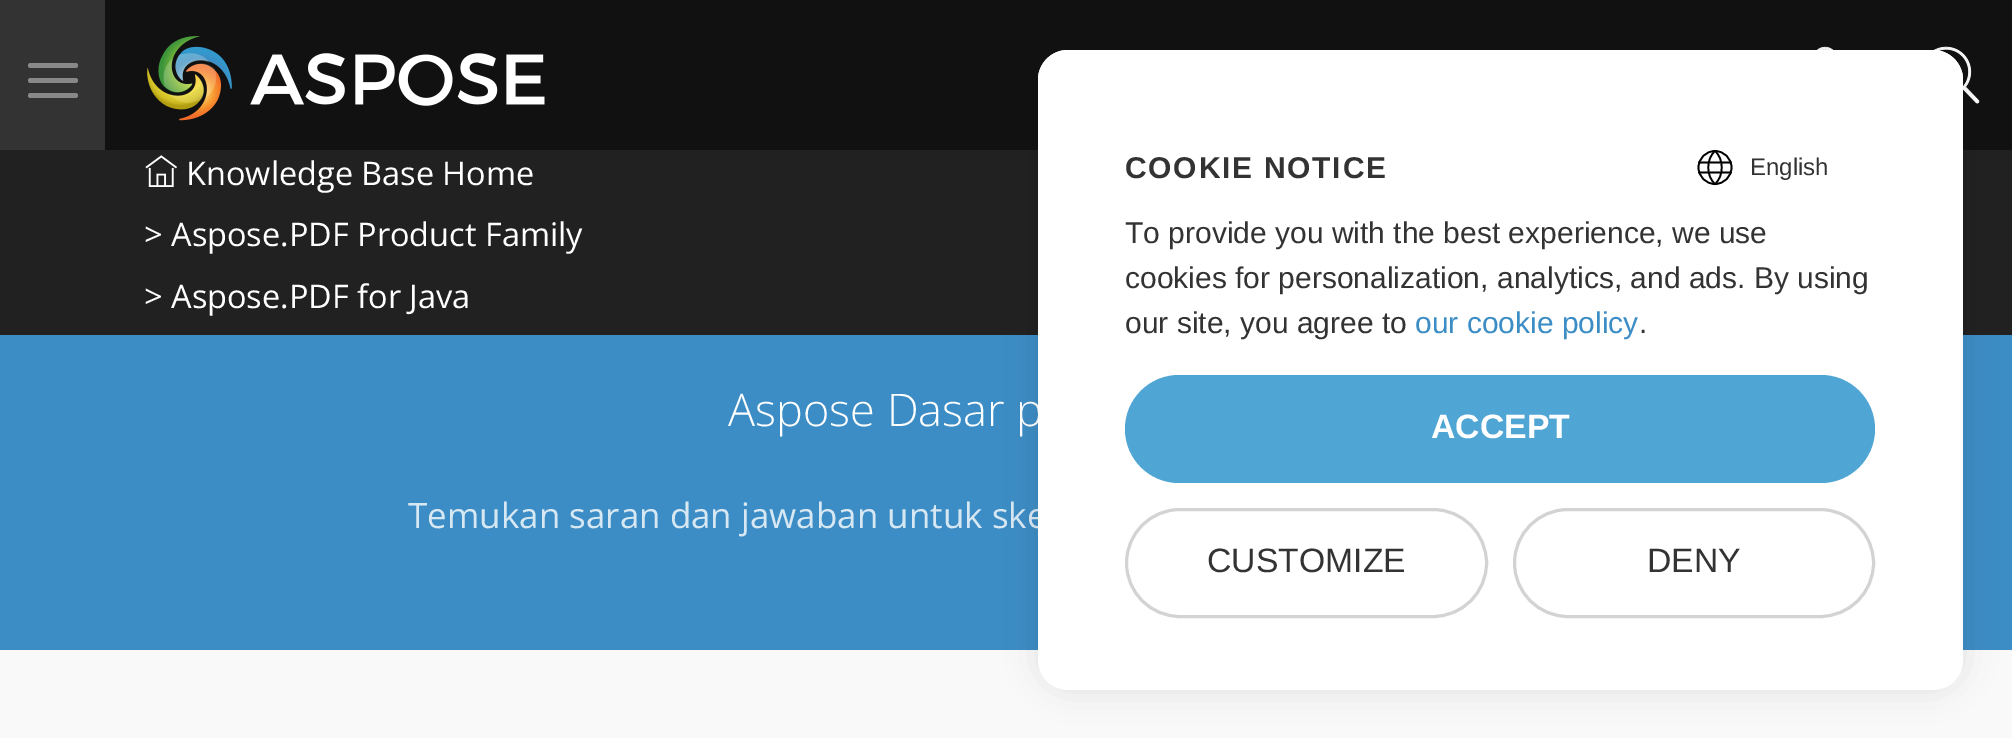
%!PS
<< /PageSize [2012 738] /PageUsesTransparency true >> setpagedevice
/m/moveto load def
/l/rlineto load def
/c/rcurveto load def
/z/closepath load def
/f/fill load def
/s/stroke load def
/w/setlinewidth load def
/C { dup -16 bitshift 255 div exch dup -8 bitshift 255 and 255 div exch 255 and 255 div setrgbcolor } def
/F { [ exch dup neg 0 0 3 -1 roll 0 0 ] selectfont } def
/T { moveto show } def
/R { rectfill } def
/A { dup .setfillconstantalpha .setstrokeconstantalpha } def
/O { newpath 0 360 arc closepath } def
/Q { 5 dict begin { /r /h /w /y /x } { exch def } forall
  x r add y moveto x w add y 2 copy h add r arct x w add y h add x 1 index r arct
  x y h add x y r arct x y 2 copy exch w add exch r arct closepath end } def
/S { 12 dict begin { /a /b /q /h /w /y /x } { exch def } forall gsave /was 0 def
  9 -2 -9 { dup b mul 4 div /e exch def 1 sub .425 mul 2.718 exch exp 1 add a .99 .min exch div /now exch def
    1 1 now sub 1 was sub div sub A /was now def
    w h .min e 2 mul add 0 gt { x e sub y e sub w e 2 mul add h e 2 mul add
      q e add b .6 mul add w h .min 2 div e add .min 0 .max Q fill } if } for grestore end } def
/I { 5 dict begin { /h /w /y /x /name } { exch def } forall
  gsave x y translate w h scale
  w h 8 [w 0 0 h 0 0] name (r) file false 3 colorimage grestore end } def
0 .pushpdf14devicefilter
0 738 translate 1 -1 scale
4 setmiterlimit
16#F9F9F9 C
0 0 2012 738 R
16#111111 C
105 0 1907 150 R
16#333333 C
0 0 105 150 R
16#888888 C
28 63 50 5 2.5 Q f
28 78 50 5 2.5 Q f
28 93 50 5 2.5 Q f
(1.rgb) 147 36 398 85 I
(2.rgb) 1817 46 17 4 I
(3.rgb) 1933 46 47 58 I
16#3C8DC5 C
0 335 2012 315 R
16#212121 C
0 150 2012 185 R
(4.rgb) 145 155 32 32 I
/OpenSans-Regular 32.5 F
16#FFFFFF C
(Knowledge Base Home) 186 185 T
(> Aspose.PDF Product Family) 144 246 T
(> Aspose.PDF for Java) 144 308 T
/OpenSans-Light 45 F
(Aspose Dasar p) 728 426 T
/OpenSans-Regular 35 F
16#D8E8F3 C
(Temukan saran dan jawaban untuk ske) 408 528 T
16#000000 C
1038 50 925 640 30 16 .1 S
16#FFFFFF C
1038 50 925 640 30 Q f
1068 50 m 865 0 l 16.5 0 30 13.5 30 30 c 0 118 l -925 0 l 0 -118 l 0 -16.5 13.5 -30 30 -30 c z f
/LiberationSans-Bold 30 F
16#333333 C
1125 178 m 1.75 0 (COOKIE NOTICE) ashow
16#000000 C
1.7 w
1715 167.5 16.5 O s
1 setlinecap
1715 184 m 9 -8 9 -25 0 -33 c -9 8 -9 25 0 33 c z 1699 162.5 m 32 0 l 1699 172.5 m 32 0 l s
/LiberationSans-Regular 24 F
16#333333 C
(English) 1750 175 T
/LiberationSans-Regular 30 F
(To provide you with the best experience, we use) 1125 243 T
(cookies for personalization, analytics, and ads. By using) 1125 288 T
(our site, you agree to) 1125 333 T
16#3C8DC5 C
(our cookie policy) 1415 333 T
16#333333 C
(.) 1639 333 T
16#4FA5D3 C
1125 375 750 108 54 Q f
/LiberationSans-Bold 33.75 F
16#FFFFFF C
(ACCEPT) 1431 438 T
16#D3D3D3 C
3 w
0 setlinecap
1126.5 509.5 360 107 53.5 Q s
/LiberationSans-Regular 33.75 F
16#333333 C
(CUSTOMIZE) 1207 572 T
16#D3D3D3 C
1514.5 509.5 359 107 53.5 Q s
16#333333 C
(DENY) 1647 572 T
.poppdf14devicefilter showpage
